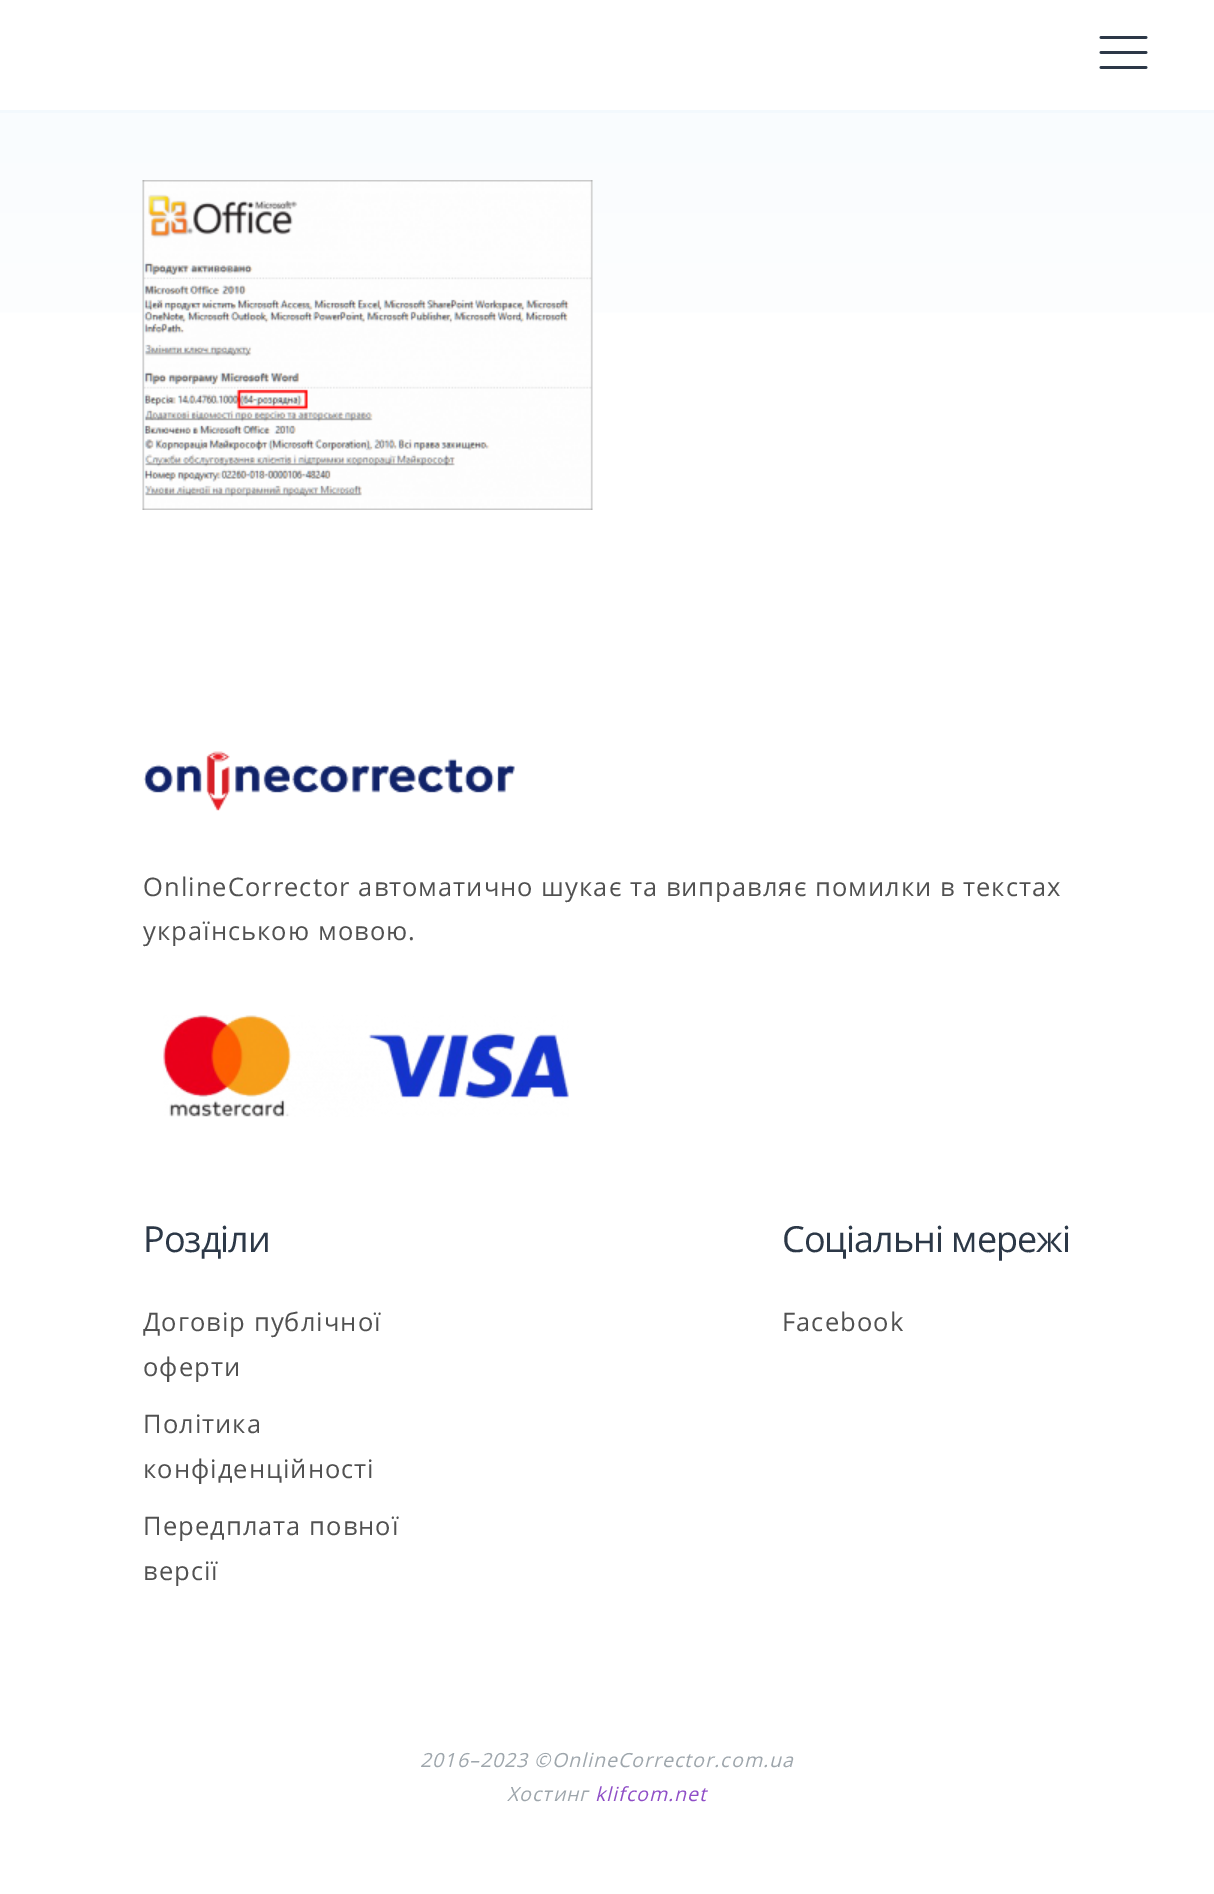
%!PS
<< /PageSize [1214 1894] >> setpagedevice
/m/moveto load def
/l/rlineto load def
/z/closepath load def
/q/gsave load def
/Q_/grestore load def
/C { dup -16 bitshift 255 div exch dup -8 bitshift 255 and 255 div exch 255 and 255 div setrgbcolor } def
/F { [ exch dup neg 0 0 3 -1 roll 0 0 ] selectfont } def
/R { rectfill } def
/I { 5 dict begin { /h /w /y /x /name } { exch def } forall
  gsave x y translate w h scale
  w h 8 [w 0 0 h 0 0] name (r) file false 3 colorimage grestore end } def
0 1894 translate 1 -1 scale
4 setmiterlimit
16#FFFFFF C
0 0 1214 1894 R
16#F3F9FD C
0 110 1214 3 R
(1.rgb) 1099 36 49 33 I
q 0 113 m 1214 0 l 0 200 l -1214 0 l z clip newpath
<< /ShadingType 2 /ColorSpace /DeviceRGB /Coords [608 0 608 584] /Extend [true true] /Function << /FunctionType 3 /Domain [0 1] /Functions [<< /FunctionType 2 /Domain [0 1] /C0 [.969 .984 .996] /C1 [1 1 1] /N 1 >> << /FunctionType 2 /Domain [0 1] /C0 [1 1 1] /C1 [1 1 1] /N 1 >>] /Bounds [.78] /Encode [0 1 0 1] >> >> shfill Q_
(2.rgb) 142 180 451 330 I
(3.rgb) 143 751 372 60 I
/OpenSans-Regular 25.5 F
16#515151 C
143 896 m 1.05 0 (OnlineCorrector автоматично шукає та виправляє помилки в текстах) ashow
143 940 m 1.05 0 (українською мовою.) ashow
(4.rgb) 163 1015 406 102 I
/OpenSans-Regular 36 F
16#2C3847 C
143 1252 m -1 0 (Розділи) ashow
/OpenSans-Regular 25.5 F
16#515151 C
143 1331 m 1.05 0 (Договір публічної) ashow
143 1376 m 1.05 0 (оферти) ashow
143 1433 m 1.05 0 (Політика) ashow
143 1478 m 1.05 0 (конфіденційності) ashow
143 1535 m 1.05 0 (Передплата повної) ashow
143 1580 m 1.05 0 (версії) ashow
/OpenSans-Regular 36 F
16#2C3847 C
782 1252 m -1 0 (Соціальні мережі) ashow
/OpenSans-Regular 25.5 F
16#515151 C
782 1331 m 1.05 0 (Facebook) ashow
/OpenSans-Italic 19.5 F
16#9EA6AC C
420 1767 m 1.05 0 (2016–2023 ©OnlineCorrector.com.ua) ashow
507 1801 m 1.05 0 (Хостинг) ashow
16#8F4EC7 C
595 1801 m 1.05 0 (klifcom.net) ashow
showpage
